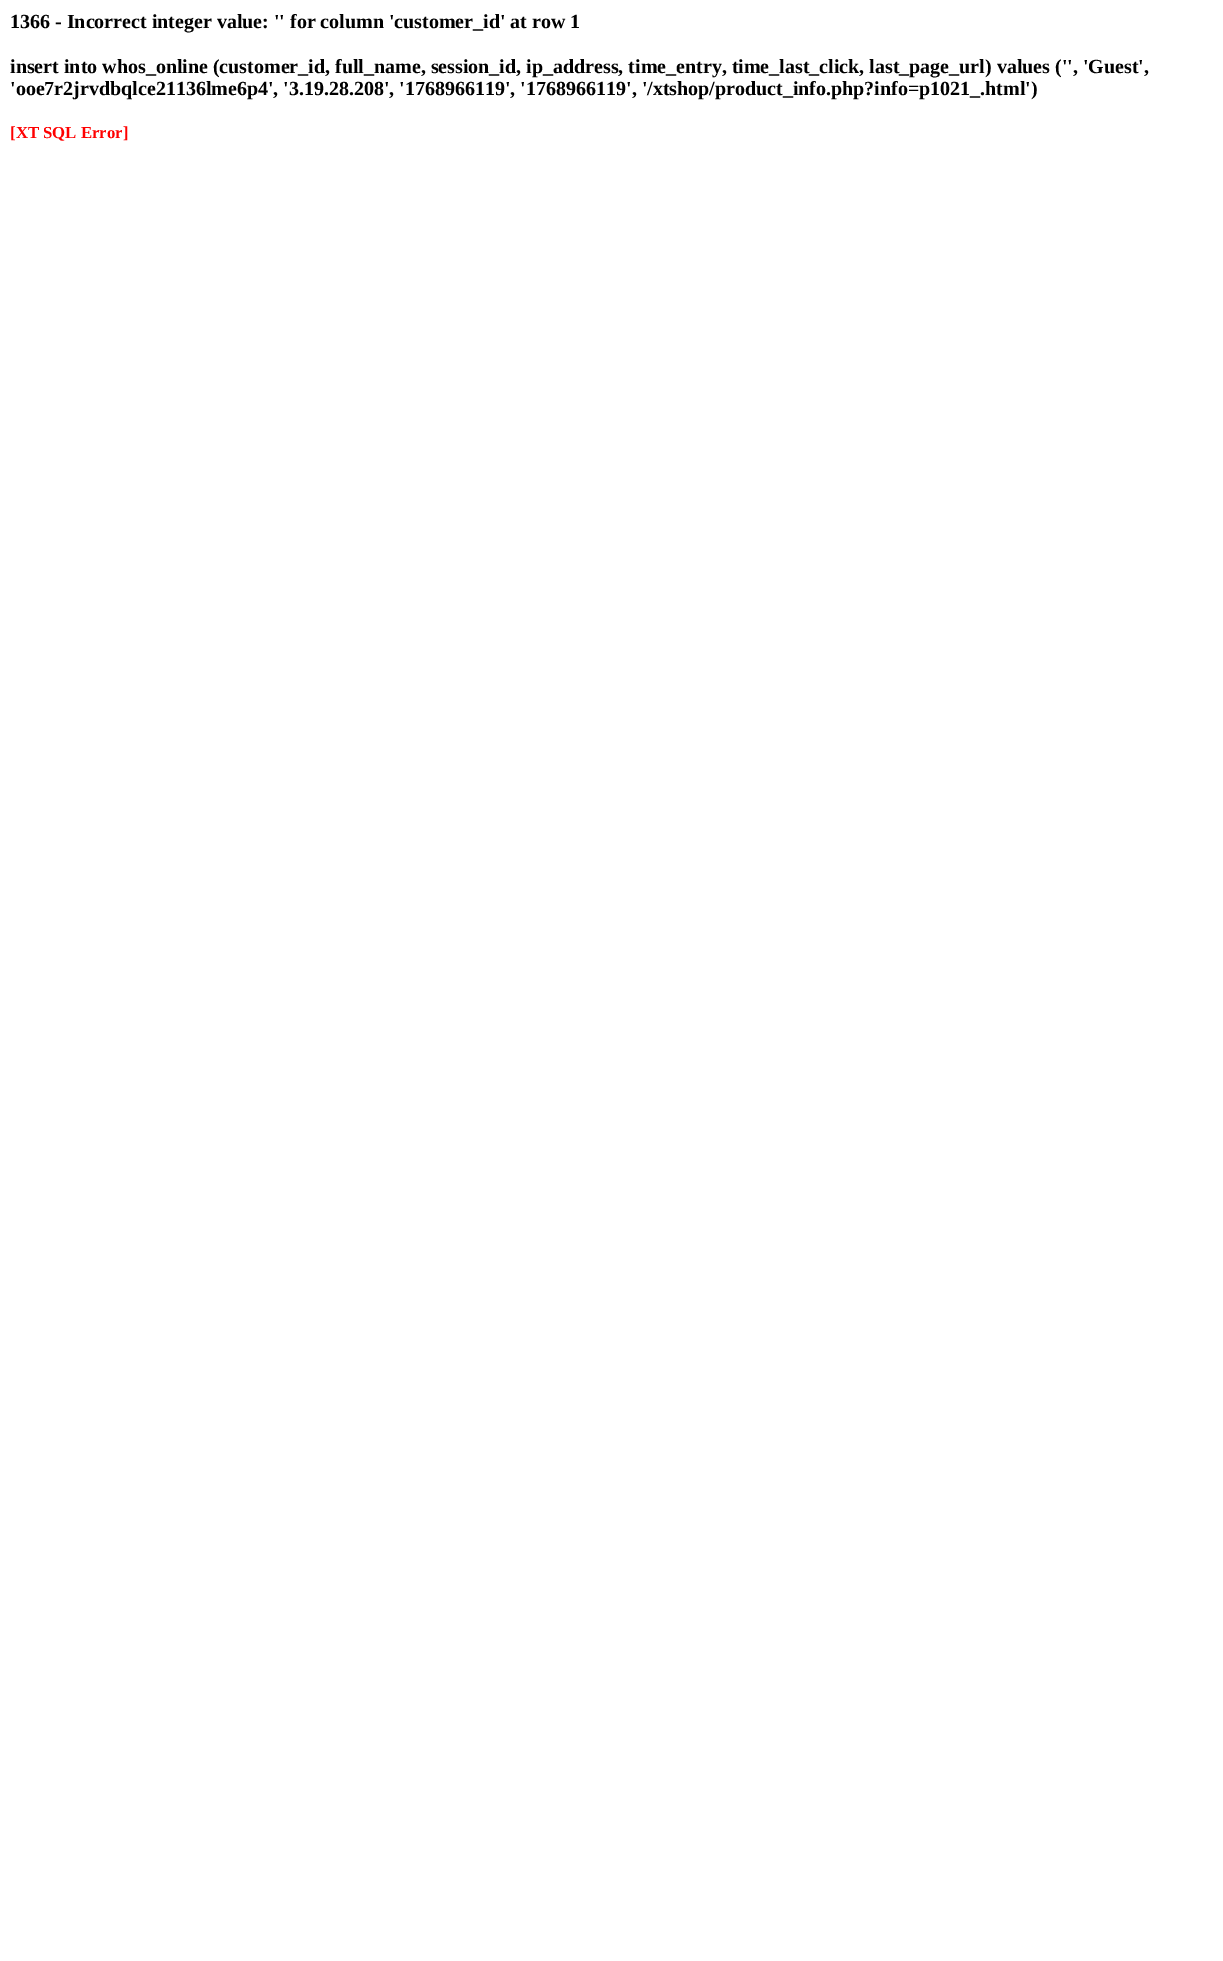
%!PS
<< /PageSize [1223 1961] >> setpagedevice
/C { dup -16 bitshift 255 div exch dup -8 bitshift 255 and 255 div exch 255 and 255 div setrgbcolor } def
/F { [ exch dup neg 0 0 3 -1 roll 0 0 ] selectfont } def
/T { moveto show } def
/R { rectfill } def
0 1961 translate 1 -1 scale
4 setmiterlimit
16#FFFFFF C
0 0 1223 1961 R
/LiberationSerif-Bold 20 F
16#000000 C
(1366 - Incorrect integer value: '' for column 'customer_id' at row 1) 10 28 T
(insert into whos_online \(customer_id, full_name, session_id, ip_address, time_entry, time_last_click, last_page_url\) values \('', 'Guest',) 10 73 T
('ooe7r2jrvdbqlce21136lme6p4', '3.19.28.208', '1768966119', '1768966119', '/xtshop/product_info.php?info=p1021_.html'\)) 10 95 T
/LiberationSerif-Bold 16.75 F
16#FF0000 C
([XT SQL Error]) 10 138 T
showpage
